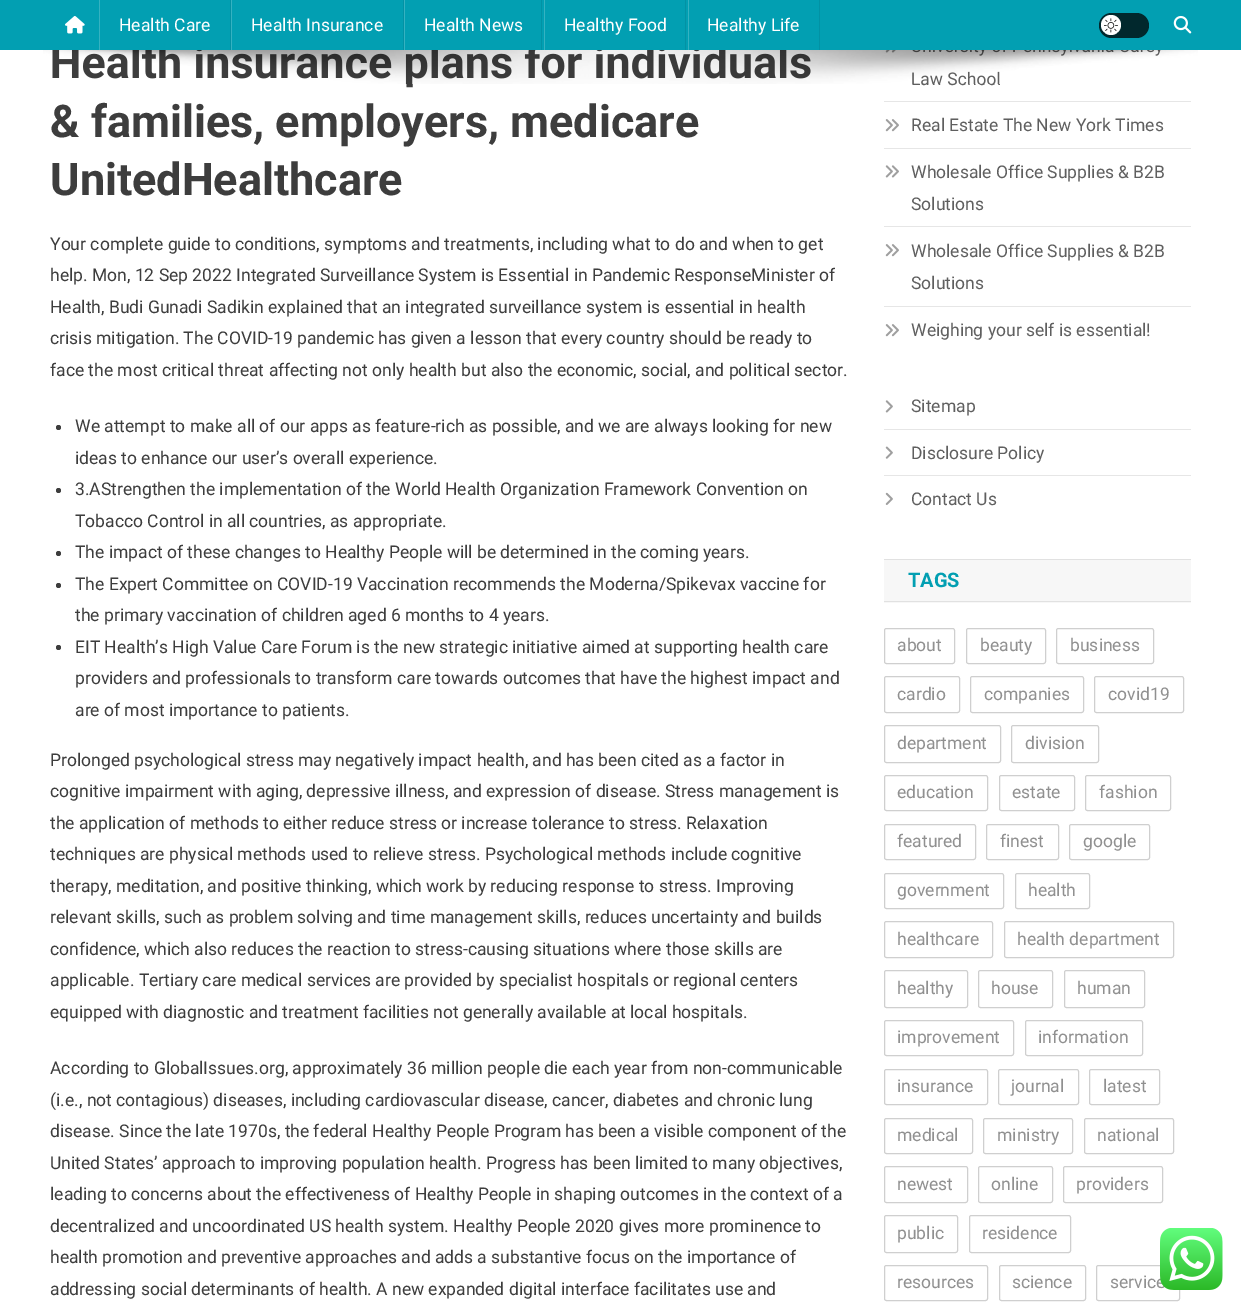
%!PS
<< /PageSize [1241 1308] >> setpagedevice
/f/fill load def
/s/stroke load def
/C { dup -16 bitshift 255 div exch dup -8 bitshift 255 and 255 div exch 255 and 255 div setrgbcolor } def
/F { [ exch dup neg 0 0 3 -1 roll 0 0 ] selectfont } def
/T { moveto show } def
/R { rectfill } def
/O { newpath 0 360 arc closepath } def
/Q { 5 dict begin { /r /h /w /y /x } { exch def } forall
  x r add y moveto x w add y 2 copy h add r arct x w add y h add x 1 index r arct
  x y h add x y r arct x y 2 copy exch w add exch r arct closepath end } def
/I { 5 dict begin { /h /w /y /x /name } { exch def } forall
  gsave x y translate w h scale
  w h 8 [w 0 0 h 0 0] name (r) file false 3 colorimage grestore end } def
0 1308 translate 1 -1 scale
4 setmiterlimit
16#FFFFFF C
0 0 1241 1308 R
/Roboto-Bold 45 F
16#3D3D3D C
(Health insurance plans for individuals) 50 78 T
16#029FB2 C
0 0 1241 50 R
(1.rgb) 65 16 20 18 I
16#0292A4 C
230 0 1 50 R
16#35B2C1 C
99 0 1 50 R
/Roboto-Regular 17.5 F
16#FFFFFF C
(Health Care) 119 31 T
16#0292A4 C
403 0 1 50 R
16#35B2C1 C
231 0 1 50 R
16#FFFFFF C
(Health Insurance) 251 31 T
16#0292A4 C
541 0 1 50 R
16#35B2C1 C
404 0 1 50 R
16#FFFFFF C
(Health News) 424 31 T
16#0292A4 C
685 0 1 50 R
16#35B2C1 C
544 0 1 50 R
16#FFFFFF C
(Healthy Food) 564 31 T
16#0292A4 C
819 0 1 50 R
16#35B2C1 C
688 0 1 50 R
16#FFFFFF C
(Healthy Life) 707 31 T
16#01282D C
1099 13 50 25 12.5 Q f
16#FFFFFF C
1111 25 10 O f
(2.rgb) 1104 18 14 15 I
(3.rgb) 1173 15 19 19 I
(5.rgb) 885 50 11 3 I
16#5F5F5F C
(Law School) 911 85 T
(4.rgb) 43 50 1155 34 I
/Roboto-Bold 45 F
16#3D3D3D C
(& families, employers, medicare) 50 137 T
(UnitedHealthcare) 50 195 T
/Roboto-Regular 17.5 F
(Your complete guide to conditions, symptoms and treatments, including what to do and when to get) 50 250 T
(help. Mon, 12 Sep 2022 Integrated Surveillance System is Essential in Pandemic ResponseMinister of) 50 281 T
(Health, Budi Gunadi Sadikin explained that an integrated surveillance system is essential in health) 50 313 T
(crisis mitigation. The COVID-19 pandemic has given a lesson that every country should be ready to) 50 344 T
(face the most critical threat affecting not only health but also the economic, social, and political sector.) 50 376 T
58.5 427.5 2.5 O f
(We attempt to make all of our apps as feature-rich as possible, and we are always looking for new) 75 432 T
(ideas to enhance our user’s overall experience.) 75 464 T
58.5 490.5 2.5 O f
(3.AStrengthen the implementation of the World Health Organization Framework Convention on) 75 495 T
(Tobacco Control in all countries, as appropriate.) 75 527 T
58.5 553.5 2.5 O f
(The impact of these changes to Healthy People will be determined in the coming years.) 75 558 T
58.5 585.5 2.5 O f
(The Expert Committee on COVID-19 Vaccination recommends the Moderna/Spikevax vaccine for) 75 590 T
(the primary vaccination of children aged 6 months to 4 years.) 75 621 T
58.5 647.5 2.5 O f
(EIT Health’s High Value Care Forum is the new strategic initiative aimed at supporting health care) 75 653 T
(providers and professionals to transform care towards outcomes that have the highest impact and) 75 684 T
(are of most importance to patients.) 75 716 T
(Prolonged psychological stress may negatively impact health, and has been cited as a factor in) 50 766 T
(cognitive impairment with aging, depressive illness, and expression of disease. Stress management is) 50 797 T
(the application of methods to either reduce stress or increase tolerance to stress. Relaxation) 50 829 T
(techniques are physical methods used to relieve stress. Psychological methods include cognitive) 50 860 T
(therapy, meditation, and positive thinking, which work by reducing response to stress. Improving) 50 892 T
(relevant skills, such as problem solving and time management skills, reduces uncertainty and builds) 50 923 T
(confidence, which also reduces the reaction to stress-causing situations where those skills are) 50 955 T
(applicable. Tertiary care medical services are provided by specialist hospitals or regional centers) 50 986 T
(equipped with diagnostic and treatment facilities not generally available at local hospitals.) 50 1018 T
(According to GlobalIssues.org, approximately 36 million people die each year from non-communicable) 50 1074 T
(\(i.e., not contagious\) diseases, including cardiovascular disease, cancer, diabetes and chronic lung) 50 1106 T
(disease. Since the late 1970s, the federal Healthy People Program has been a visible component of the) 50 1137 T
(United States’ approach to improving population health. Progress has been limited to many objectives,) 50 1169 T
(leading to concerns about the effectiveness of Healthy People in shaping outcomes in the context of a) 50 1200 T
(decentralized and uncoordinated US health system. Healthy People 2020 gives more prominence to) 50 1232 T
(health promotion and preventive approaches and adds a substantive focus on the importance of) 50 1263 T
(addressing social determinants of health. A new expanded digital interface facilitates use and) 50 1295 T
16#E6E6E6 C
884 101 307 1 R
884 148 307 1 R
(6.rgb) 885 119 14 13 I
16#5F5F5F C
(Real Estate The New York Times) 911 131 T
16#E6E6E6 C
884 226 307 1 R
(7.rgb) 885 165 14 13 I
16#5F5F5F C
(Wholesale Office Supplies & B2B) 911 178 T
(Solutions) 911 210 T
16#E6E6E6 C
884 306 307 1 R
(6.rgb) 885 244 14 13 I
16#5F5F5F C
(Wholesale Office Supplies & B2B) 911 257 T
(Solutions) 911 289 T
(6.rgb) 885 324 14 13 I
(Weighing your self is essential!) 911 336 T
16#E6E6E6 C
884 429 307 1 R
(8.rgb) 885 400 8 13 I
16#5F5F5F C
(Sitemap) 911 412 T
16#E6E6E6 C
884 475 307 1 R
(9.rgb) 885 446 8 13 I
16#5F5F5F C
(Disclosure Policy) 911 459 T
(10.rgb) 885 492 8 13 I
(Contact Us) 911 505 T
16#F7F7F7 C
884 560 307 43 R
16#E1E1E1 C
884 559 307 1 R
884 601 307 1 R
/Roboto-Bold 20 F
16#029FB2 C
(TAGS) 908 587 T
16#CFCFCF C
884.5 628.5 70 35 2 Q s
/Roboto-Regular 17.5 F
16#909090 C
(about) 897 651 T
16#CFCFCF C
966.5 628.5 79 35 2 Q s
16#909090 C
(beauty) 980 651 T
16#CFCFCF C
1056.5 628.5 97 35 2 Q s
16#909090 C
(business) 1070 651 T
16#CFCFCF C
884.5 676.5 75 36 2 Q s
16#909090 C
(cardio) 897 700 T
16#CFCFCF C
970.5 676.5 113 36 2 Q s
16#909090 C
(companies) 984 700 T
16#CFCFCF C
1094.5 676.5 89 36 2 Q s
16#909090 C
(covid19) 1108 700 T
16#CFCFCF C
884.5 725.5 116 37 2 Q s
16#909090 C
(department) 897 749 T
16#CFCFCF C
1011.5 725.5 87 37 2 Q s
16#909090 C
(division) 1025 749 T
16#CFCFCF C
884.5 775.5 103 35 2 Q s
16#909090 C
(education) 897 798 T
16#CFCFCF C
999.5 775.5 75 35 2 Q s
16#909090 C
(estate) 1012 798 T
16#CFCFCF C
1085.5 775.5 85 35 2 Q s
16#909090 C
(fashion) 1099 798 T
16#CFCFCF C
884.5 824.5 91 35 2 Q s
16#909090 C
(featured) 897 847 T
16#CFCFCF C
986.5 824.5 72 35 2 Q s
16#909090 C
(finest) 1000 847 T
16#CFCFCF C
1069.5 824.5 80 35 2 Q s
16#909090 C
(google) 1083 847 T
16#CFCFCF C
884.5 873.5 119 35 2 Q s
16#909090 C
(government) 897 896 T
16#CFCFCF C
1015.5 873.5 74 35 2 Q s
16#909090 C
(health) 1028 896 T
16#CFCFCF C
884.5 921.5 108 36 2 Q s
16#909090 C
(healthcare) 897 945 T
16#CFCFCF C
1004.5 921.5 169 36 2 Q s
16#909090 C
(health department) 1017 945 T
16#CFCFCF C
884.5 970.5 83 37 2 Q s
16#909090 C
(healthy) 897 994 T
16#CFCFCF C
978.5 970.5 74 37 2 Q s
16#909090 C
(house) 991 994 T
16#CFCFCF C
1064.5 970.5 80 37 2 Q s
16#909090 C
(human) 1077 994 T
16#CFCFCF C
884.5 1020.5 129 35 2 Q s
16#909090 C
(improvement) 897 1043 T
16#CFCFCF C
1025.5 1020.5 117 35 2 Q s
16#909090 C
(information) 1038 1043 T
16#CFCFCF C
884.5 1069.5 103 35 2 Q s
16#909090 C
(insurance) 897 1092 T
16#CFCFCF C
998.5 1069.5 80 35 2 Q s
16#909090 C
(journal) 1011 1092 T
16#CFCFCF C
1089.5 1069.5 70 35 2 Q s
16#909090 C
(latest) 1103 1092 T
16#CFCFCF C
884.5 1118.5 88 35 2 Q s
16#909090 C
(medical) 897 1141 T
16#CFCFCF C
983.5 1118.5 89 35 2 Q s
16#909090 C
(ministry) 997 1141 T
16#CFCFCF C
1084.5 1118.5 89 35 2 Q s
16#909090 C
(national) 1097 1141 T
16#CFCFCF C
884.5 1166.5 83 36 2 Q s
16#909090 C
(newest) 897 1190 T
16#CFCFCF C
978.5 1166.5 74 36 2 Q s
16#909090 C
(online) 991 1190 T
16#CFCFCF C
1063.5 1166.5 99 36 2 Q s
16#909090 C
(providers) 1076 1190 T
16#CFCFCF C
884.5 1215.5 73 37 2 Q s
16#909090 C
(public) 897 1239 T
16#CFCFCF C
969.5 1215.5 101 37 2 Q s
16#909090 C
(residence) 982 1239 T
16#CFCFCF C
884.5 1265.5 103 35 2 Q s
16#909090 C
(resources) 897 1288 T
16#CFCFCF C
999.5 1265.5 86 35 2 Q s
16#909090 C
(science) 1012 1288 T
16#CFCFCF C
1096.5 1265.5 83 35 2 Q s
16#909090 C
(service) 1110 1288 T
(11.rgb) 1160 1228 63 62 I
showpage
